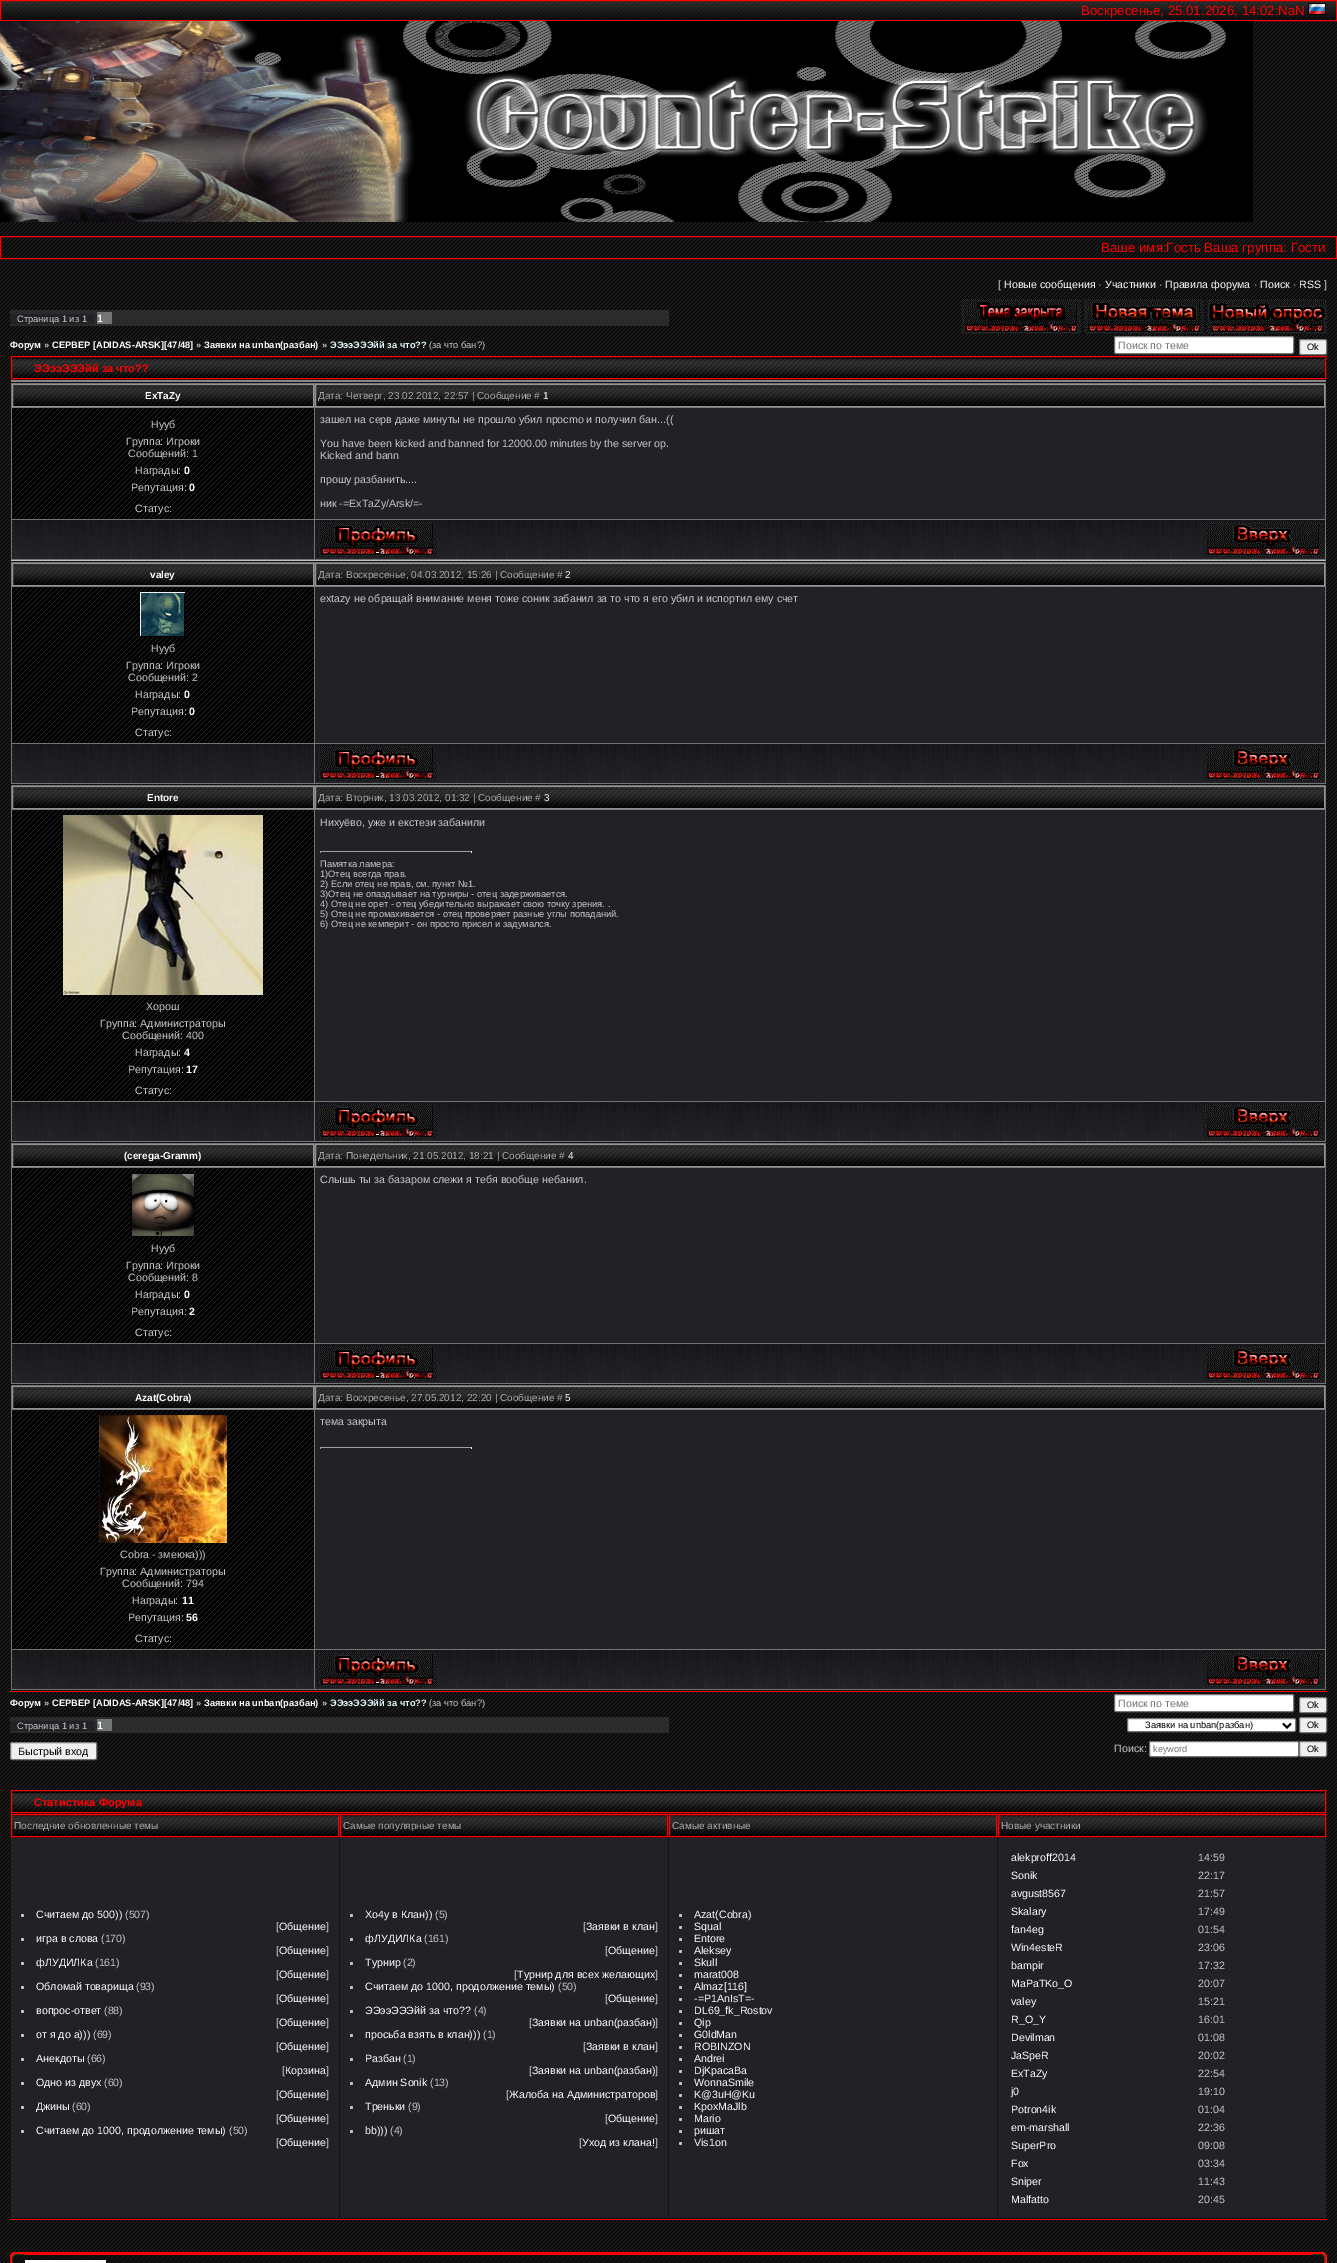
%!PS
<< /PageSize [1337 2263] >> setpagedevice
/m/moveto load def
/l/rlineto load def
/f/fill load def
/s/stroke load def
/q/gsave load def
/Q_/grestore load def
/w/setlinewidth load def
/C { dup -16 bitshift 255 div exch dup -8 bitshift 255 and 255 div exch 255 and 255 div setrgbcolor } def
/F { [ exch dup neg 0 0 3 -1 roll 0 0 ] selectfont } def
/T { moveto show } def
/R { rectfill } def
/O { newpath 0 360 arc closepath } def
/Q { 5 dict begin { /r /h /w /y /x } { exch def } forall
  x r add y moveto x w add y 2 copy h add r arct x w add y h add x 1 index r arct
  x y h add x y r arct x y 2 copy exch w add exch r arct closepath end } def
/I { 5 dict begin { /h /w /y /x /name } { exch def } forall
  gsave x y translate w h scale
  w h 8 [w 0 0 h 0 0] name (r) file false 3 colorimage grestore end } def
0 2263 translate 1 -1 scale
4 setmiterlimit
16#FFFFFF C
0 0 1337 2263 R
(1.rgb) 0 21 1337 2242 I
(2.rgb) 1 1 1335 19 I
16#FF0000 C
.5 .5 1336 20 rectstroke
/LiberationSans-Regular 13.3 F
(Воскресенье, 25.01.2026, 14:02:NaN) 1081 15 T
(3.rgb) 1308 3 18 12 I
(4.rgb) 0 21 1253 201 I
.5 236.5 1336 22 rectstroke
(Ваше имя:Гость Ваша группа: Гости) 1101 252 T
/LiberationSans-Regular 10.65 F
16#C8C8C8 C
([) 998 288 T
16#FFFFFF C
(Новые сообщения) 1004 288 T
16#C8C8C8 C
(·) 1098 288 T
16#FFFFFF C
(Участники) 1105 288 T
16#C8C8C8 C
(·) 1159 288 T
16#FFFFFF C
(Правила форума) 1165 288 T
16#C8C8C8 C
(·) 1254 288 T
16#FFFFFF C
(Поиск) 1260 288 T
16#C8C8C8 C
(·) 1293 288 T
16#FFFFFF C
(RSS) 1299 288 T
16#C8C8C8 C
(]) 1324 288 T
16#2B2B2B C
10 310 659 16 R
16#222226 C
10 314 84 10 R
/LiberationSans-Regular 9.3 F
16#C8C8C8 C
(Страница 1 из 1) 17 322 T
16#747474 C
97 312 15 12 R
/LiberationSans-Bold 10.65 F
16#E4FAFD C
(1) 97 322 T
(5.rgb) 961 299 120 35 I
(6.rgb) 1084 299 120 35 I
(7.rgb) 1207 299 120 35 I
/LiberationSans-Bold 9.3 F
16#FFFFFF C
(Форум) 10 348 T
16#C8C8C8 C
(») 44 348 T
16#FFFFFF C
(CEPBEP [ADIDAS-ARSK][47/48]) 52 348 T
16#C8C8C8 C
(») 196 348 T
16#FFFFFF C
(Заявки на unban\(разбан\)) 204 348 T
16#C8C8C8 C
(») 322 348 T
16#E4FAFD C
(ЭЭээЭЭЭйй за что??) 330 348 T
/LiberationSans-Regular 9.3 F
16#C8C8C8 C
(\(за что бан?\)) 429 348 T
16#FFFFFF C
1114.5 336.5 179 17 1.5 Q q f Q_
16#767676 C
s
/LiberationSans-Regular 10.65 F
16#757575 C
(Поиск по теме) 1118 349 T
16#EFEFEF C
1299.5 339.5 27 15 1.5 Q q f Q_
16#767676 C
s
/LiberationSans-Regular 9.3 F
16#000000 C
(Ok) 1307 350 T
16#FF0000 C
10 1691 1317 1 R
(8.rgb) 12 357 1313 21 I
11.5 356.5 1314 22 rectstroke
/LiberationSans-Bold 11 F
(ЭЭээЭЭЭйй за что??) 34 372 T
16#858585 C
11 380 1315 2 R
16#C0C0C0 C
11 560 1315 1 R
16#747474 C
11 383 1315 177 R
(9.rgb) 13 385 300 21 I
16#929292 C
12.5 384.5 301 22 rectstroke
/LiberationSans-Bold 10 F
16#FFFFFF C
(ExTaZy) 145 399 T
(10.rgb) 316 385 1008 21 I
16#929292 C
315.5 384.5 1009 22 rectstroke
/LiberationSans-Regular 10 F
16#ACACAC C
(Дата: Четверг, 23.02.2012, 22:57 | Сообщение #) 318 399 T
16#FFFFFF C
(1) 543 399 T
(11.rgb) 12 408 302 111 I
/LiberationSans-Regular 10.65 F
16#C8C8C8 C
(Нууб) 151 428 T
(Группа: Игроки) 126 445 T
(Сообщений: 1) 128 457 T
(Награды:) 135 474 T
/LiberationSans-Bold 10.65 F
16#FFFFFF C
(0) 184 474 T
/LiberationSans-Regular 10.65 F
16#C8C8C8 C
(Репутация:) 131 491 T
/LiberationSans-Bold 10.65 F
16#FFFFFF C
(0) 189 491 T
/LiberationSans-Regular 10.65 F
16#C8C8C8 C
(Статус:) 135 512 T
16#222226 C
315 408 1010 111 R
16#C8C8C8 C
(зашел на серв даже минуты не прошло убил npocmo и получил бан...\(\() 320 423 T
(You have been kicked and banned for 12000.00 minutes by the server op.) 320 447 T
(Kicked and bann) 320 459 T
(прошу разбанить....) 320 483 T
(ник -=ExTaZy/Arsk/=-) 320 507 T
(12.rgb) 12 520 302 39 I
(13.rgb) 315 520 1010 39 I
(14.rgb) 317 522 120 35 I
(15.rgb) 1203 522 120 35 I
16#747474 C
11 562 1315 222 R
(9.rgb) 13 564 300 21 I
16#929292 C
12.5 563.5 301 22 rectstroke
/LiberationSans-Bold 10 F
16#FFFFFF C
(valey) 150 578 T
(10.rgb) 316 564 1008 21 I
16#929292 C
315.5 563.5 1009 22 rectstroke
/LiberationSans-Regular 10 F
16#ACACAC C
(Дата: Воскресенье, 04.03.2012, 15:26 | Сообщение #) 318 578 T
16#FFFFFF C
(2) 565 578 T
16#222226 C
315 587 1010 156 R
/LiberationSans-Regular 10.65 F
16#C8C8C8 C
(extazy не обращай внимание меня тоже соник забанил за то что я его убил и испортил ему счет) 320 602 T
(16.rgb) 12 587 302 156 I
(17.rgb) 140 592 45 45 I
(Нууб) 151 652 T
(Группа: Игроки) 126 669 T
(Сообщений: 2) 128 681 T
(Награды:) 135 698 T
/LiberationSans-Bold 10.65 F
16#FFFFFF C
(0) 184 698 T
/LiberationSans-Regular 10.65 F
16#C8C8C8 C
(Репутация:) 131 715 T
/LiberationSans-Bold 10.65 F
16#FFFFFF C
(0) 189 715 T
/LiberationSans-Regular 10.65 F
16#C8C8C8 C
(Статус:) 135 736 T
(12.rgb) 12 744 302 39 I
(13.rgb) 315 744 1010 39 I
(14.rgb) 317 746 120 35 I
(15.rgb) 1203 746 120 35 I
16#747474 C
11 785 1315 357 R
(9.rgb) 13 787 300 21 I
16#929292 C
12.5 786.5 301 22 rectstroke
/LiberationSans-Bold 10 F
16#FFFFFF C
(Entore) 147 801 T
(10.rgb) 316 787 1008 21 I
16#929292 C
315.5 786.5 1009 22 rectstroke
/LiberationSans-Regular 10 F
16#ACACAC C
(Дата: Вторник, 13.03.2012, 01:32 | Сообщение #) 318 801 T
16#FFFFFF C
(3) 544 801 T
16#222226 C
315 810 1010 291 R
/LiberationSans-Regular 10.65 F
16#C8C8C8 C
(Нихуёво, уже и екстези забанили) 320 826 T
16#9F9F9F C
320 851 152 1 R
16#EEEEEE C
471 851 1 2 R
16#9F9F9F C
320 851 1 2 R
/LiberationSans-Regular 9.3 F
16#C8C8C8 C
(Памятка ламера:) 320 867 T
(1\)Отец всегда прав.) 320 877 T
(2\) Если отец не прав, см. пункт №1.) 320 887 T
(3\)Отец не опаздывает на турниры - отец задерживается.) 320 897 T
(4\) Отец не орет - отец убедительно выражает свою точку зрения. .) 320 907 T
(5\) Отец не промахивается - отец проверяет разные углы попаданий.) 320 917 T
(6\) Отец не кемперит - он просто присел и задумался.) 320 927 T
(18.rgb) 12 810 302 291 I
(19.rgb) 63 815 200 180 I
/LiberationSans-Regular 10.65 F
(Хорош) 146 1010 T
(Группа: Администраторы) 100 1027 T
(Сообщений: 400) 122 1039 T
(Награды:) 135 1056 T
/LiberationSans-Bold 10.65 F
16#FFFFFF C
(4) 184 1056 T
/LiberationSans-Regular 10.65 F
16#C8C8C8 C
(Репутация:) 128 1073 T
/LiberationSans-Bold 10.65 F
16#FFFFFF C
(17) 186 1073 T
/LiberationSans-Regular 10.65 F
16#C8C8C8 C
(Статус:) 135 1094 T
(12.rgb) 12 1102 302 39 I
(13.rgb) 315 1102 1010 39 I
(14.rgb) 317 1104 120 35 I
(15.rgb) 1203 1104 120 35 I
16#747474 C
11 1143 1315 241 R
(9.rgb) 13 1145 300 21 I
16#929292 C
12.5 1144.5 301 22 rectstroke
/LiberationSans-Bold 10 F
16#FFFFFF C
(\(cerega-Gramm\)) 124 1159 T
(10.rgb) 316 1145 1008 21 I
16#929292 C
315.5 1144.5 1009 22 rectstroke
/LiberationSans-Regular 10 F
16#ACACAC C
(Дата: Понедельник, 21.05.2012, 18:21 | Сообщение #) 318 1159 T
16#FFFFFF C
(4) 568 1159 T
16#222226 C
315 1168 1010 175 R
/LiberationSans-Regular 10.65 F
16#C8C8C8 C
(Слышь ты за базаром слежи я тебя вообще небанил.) 320 1183 T
(20.rgb) 12 1168 302 175 I
(21.rgb) 131 1173 64 64 I
(Нууб) 151 1252 T
(Группа: Игроки) 126 1269 T
(Сообщений: 8) 128 1281 T
(Награды:) 135 1298 T
/LiberationSans-Bold 10.65 F
16#FFFFFF C
(0) 184 1298 T
/LiberationSans-Regular 10.65 F
16#C8C8C8 C
(Репутация:) 131 1315 T
/LiberationSans-Bold 10.65 F
16#FFFFFF C
(2) 189 1315 T
/LiberationSans-Regular 10.65 F
16#C8C8C8 C
(Статус:) 135 1336 T
(12.rgb) 12 1344 302 39 I
(13.rgb) 315 1344 1010 39 I
(14.rgb) 317 1346 120 35 I
(15.rgb) 1203 1346 120 35 I
16#747474 C
11 1385 1315 305 R
(9.rgb) 13 1387 300 21 I
16#929292 C
12.5 1386.5 301 22 rectstroke
/LiberationSans-Bold 10 F
16#FFFFFF C
(Azat\(Cobra\)) 135 1401 T
(10.rgb) 316 1387 1008 21 I
16#929292 C
315.5 1386.5 1009 22 rectstroke
/LiberationSans-Regular 10 F
16#ACACAC C
(Дата: Воскресенье, 27.05.2012, 22:20 | Сообщение #) 318 1401 T
16#FFFFFF C
(5) 565 1401 T
16#222226 C
315 1410 1010 239 R
/LiberationSans-Regular 10.65 F
16#C8C8C8 C
(тема закрыта) 320 1425 T
16#9F9F9F C
320 1447 152 1 R
16#EEEEEE C
471 1447 1 2 R
16#9F9F9F C
320 1447 1 2 R
(22.rgb) 12 1410 302 239 I
(23.rgb) 99 1415 128 128 I
16#C8C8C8 C
(Cobra - змеюка\)\)\)) 120 1558 T
(Группа: Администраторы) 100 1575 T
(Сообщений: 794) 122 1587 T
(Награды:) 132 1604 T
/LiberationSans-Bold 10.65 F
16#FFFFFF C
(11) 182 1604 T
/LiberationSans-Regular 10.65 F
16#C8C8C8 C
(Репутация:) 128 1621 T
/LiberationSans-Bold 10.65 F
16#FFFFFF C
(56) 186 1621 T
/LiberationSans-Regular 10.65 F
16#C8C8C8 C
(Статус:) 135 1642 T
(12.rgb) 12 1650 302 39 I
(13.rgb) 315 1650 1010 39 I
(14.rgb) 317 1652 120 35 I
(15.rgb) 1203 1652 120 35 I
/LiberationSans-Bold 9.3 F
16#FFFFFF C
(Форум) 10 1706 T
16#C8C8C8 C
(») 44 1706 T
16#FFFFFF C
(CEPBEP [ADIDAS-ARSK][47/48]) 52 1706 T
16#C8C8C8 C
(») 196 1706 T
16#FFFFFF C
(Заявки на unban\(разбан\)) 204 1706 T
16#C8C8C8 C
(») 322 1706 T
16#E4FAFD C
(ЭЭээЭЭЭйй за что??) 330 1706 T
/LiberationSans-Regular 9.3 F
16#C8C8C8 C
(\(за что бан?\)) 429 1706 T
16#FFFFFF C
1114.5 1694.5 179 17 1.5 Q q f Q_
16#767676 C
s
/LiberationSans-Regular 10.65 F
16#757575 C
(Поиск по теме) 1118 1707 T
16#EFEFEF C
1299.5 1697.5 27 15 1.5 Q q f Q_
16#767676 C
s
/LiberationSans-Regular 9.3 F
16#000000 C
(Ok) 1307 1708 T
16#2B2B2B C
10 1717 659 16 R
16#222226 C
10 1721 84 10 R
16#C8C8C8 C
(Страница 1 из 1) 17 1729 T
16#747474 C
97 1719 15 12 R
/LiberationSans-Bold 10.65 F
16#E4FAFD C
(1) 97 1729 T
16#FFFFFF C
1127.5 1718.5 168 13 1.5 Q q f Q_
16#767676 C
s
16#000000 C
2 w
1283 1723.5 m 4 4 l 4 -4 l s
/LiberationSans-Regular 9.3 F
(Заявки на unban\(разбан\)) 1145 1728 T
16#EFEFEF C
1299.5 1717.5 27 15 1.5 Q q f Q_
16#767676 C
1 w
s
16#000000 C
(Ok) 1307 1728 T
16#EFEFEF C
10.5 1742.5 86 17 1.5 Q q f Q_
16#767676 C
s
/LiberationSans-Regular 10.65 F
16#000000 C
(Быстрый вход) 18 1755 T
16#C8C8C8 C
(Поиск:) 1114 1752 T
16#FFFFFF C
1149.5 1741.5 149 15 1.5 Q q f Q_
16#767676 C
s
/LiberationSans-Regular 9.3 F
16#757575 C
(keyword) 1153 1752 T
16#EFEFEF C
1299.5 1741.5 27 15 1.5 Q q f Q_
16#767676 C
s
16#000000 C
(Ok) 1307 1752 T
16#FF0000 C
10 2219 1317 1 R
(8.rgb) 12 1791 1313 21 I
11.5 1790.5 1314 22 rectstroke
/LiberationSans-Bold 11 F
(Статистика Форума) 34 1806 T
(24.rgb) 12 1815 326 21 I
11.5 1814.5 327 22 rectstroke
/LiberationSans-Regular 10 F
16#ACACAC C
(Последние обновленные темы) 14 1829 T
(24.rgb) 341 1815 326 21 I
16#FF0000 C
340.5 1814.5 327 22 rectstroke
16#ACACAC C
(Самые популярные темы) 343 1829 T
(24.rgb) 670 1815 326 21 I
16#FF0000 C
669.5 1814.5 327 22 rectstroke
16#ACACAC C
(Самые активные) 672 1829 T
(24.rgb) 999 1815 326 21 I
16#FF0000 C
998.5 1814.5 327 22 rectstroke
16#ACACAC C
(Новые участники) 1001 1829 T
16#222226 C
11 1838 328 380 R
16#C8C8C8 C
22.5 1915.5 1.5 O f
/LiberationSans-Regular 10.65 F
16#FFFFFF C
(Считаем до 500\)\)) 36 1918 T
16#C8C8C8 C
(\(507\)) 125 1918 T
([) 276 1930 T
16#FFFFFF C
(Общение) 279 1930 T
16#C8C8C8 C
(]) 326 1930 T
22.5 1939.5 1.5 O f
16#FFFFFF C
(игра в слова) 36 1942 T
16#C8C8C8 C
(\(170\)) 101 1942 T
([) 276 1954 T
16#FFFFFF C
(Общение) 279 1954 T
16#C8C8C8 C
(]) 326 1954 T
22.5 1963.5 1.5 O f
16#FFFFFF C
(фЛУДИЛКа) 36 1966 T
16#C8C8C8 C
(\(161\)) 95 1966 T
([) 276 1978 T
16#FFFFFF C
(Общение) 279 1978 T
16#C8C8C8 C
(]) 326 1978 T
22.5 1987.5 1.5 O f
16#FFFFFF C
(Обломай товарища) 36 1990 T
16#C8C8C8 C
(\(93\)) 136 1990 T
([) 276 2002 T
16#FFFFFF C
(Общение) 279 2002 T
16#C8C8C8 C
(]) 326 2002 T
22.5 2011.5 1.5 O f
16#FFFFFF C
(вопрос-ответ) 36 2014 T
16#C8C8C8 C
(\(88\)) 104 2014 T
([) 276 2026 T
16#FFFFFF C
(Общение) 279 2026 T
16#C8C8C8 C
(]) 326 2026 T
22.5 2035.5 1.5 O f
16#FFFFFF C
(от я до а\)\)\)) 36 2038 T
16#C8C8C8 C
(\(69\)) 93 2038 T
([) 276 2050 T
16#FFFFFF C
(Общение) 279 2050 T
16#C8C8C8 C
(]) 326 2050 T
22.5 2059.5 1.5 O f
16#FFFFFF C
(Анекдоты) 36 2062 T
16#C8C8C8 C
(\(66\)) 87 2062 T
([) 282 2074 T
16#FFFFFF C
(Корзина) 285 2074 T
16#C8C8C8 C
(]) 326 2074 T
22.5 2083.5 1.5 O f
16#FFFFFF C
(Одно из двух) 36 2086 T
16#C8C8C8 C
(\(60\)) 104 2086 T
([) 276 2098 T
16#FFFFFF C
(Общение) 279 2098 T
16#C8C8C8 C
(]) 326 2098 T
22.5 2107.5 1.5 O f
16#FFFFFF C
(Джины) 36 2110 T
16#C8C8C8 C
(\(60\)) 72 2110 T
([) 276 2122 T
16#FFFFFF C
(Общение) 279 2122 T
16#C8C8C8 C
(]) 326 2122 T
22.5 2131.5 1.5 O f
16#FFFFFF C
(Считаем до 1000, продолжение темы\)) 36 2134 T
16#C8C8C8 C
(\(50\)) 229 2134 T
([) 276 2146 T
16#FFFFFF C
(Общение) 279 2146 T
16#C8C8C8 C
(]) 326 2146 T
16#222226 C
340 1838 328 380 R
16#C8C8C8 C
351.5 1915.5 1.5 O f
16#FFFFFF C
(Хо4у в Клан\)\)) 365 1918 T
16#C8C8C8 C
(\(5\)) 435 1918 T
([) 583 1930 T
16#FFFFFF C
(Заявки в клан) 586 1930 T
16#C8C8C8 C
(]) 655 1930 T
351.5 1939.5 1.5 O f
16#FFFFFF C
(фЛУДИЛКа) 365 1942 T
16#C8C8C8 C
(\(161\)) 424 1942 T
([) 605 1954 T
16#FFFFFF C
(Общение) 608 1954 T
16#C8C8C8 C
(]) 655 1954 T
351.5 1963.5 1.5 O f
16#FFFFFF C
(Турнир) 365 1966 T
16#C8C8C8 C
(\(2\)) 403 1966 T
([) 514 1978 T
16#FFFFFF C
(Турнир для всех желающих) 517 1978 T
16#C8C8C8 C
(]) 655 1978 T
351.5 1987.5 1.5 O f
16#FFFFFF C
(Считаем до 1000, продолжение темы\)) 365 1990 T
16#C8C8C8 C
(\(50\)) 558 1990 T
([) 605 2002 T
16#FFFFFF C
(Общение) 608 2002 T
16#C8C8C8 C
(]) 655 2002 T
351.5 2011.5 1.5 O f
16#FFFFFF C
(ЭЭээЭЭЭйй за что??) 365 2014 T
16#C8C8C8 C
(\(4\)) 474 2014 T
([) 529 2026 T
16#FFFFFF C
(Заявки на unban\(разбан\)) 532 2026 T
16#C8C8C8 C
(]) 655 2026 T
351.5 2035.5 1.5 O f
16#FFFFFF C
(просьба взять в клан\)\)\)) 365 2038 T
16#C8C8C8 C
(\(1\)) 483 2038 T
([) 583 2050 T
16#FFFFFF C
(Заявки в клан) 586 2050 T
16#C8C8C8 C
(]) 655 2050 T
351.5 2059.5 1.5 O f
16#FFFFFF C
(Разбан) 365 2062 T
16#C8C8C8 C
(\(1\)) 403 2062 T
([) 529 2074 T
16#FFFFFF C
(Заявки на unban\(разбан\)) 532 2074 T
16#C8C8C8 C
(]) 655 2074 T
351.5 2083.5 1.5 O f
16#FFFFFF C
(Админ Sonik) 365 2086 T
16#C8C8C8 C
(\(13\)) 430 2086 T
([) 506 2098 T
16#FFFFFF C
(Жалоба на Администраторов) 509 2098 T
16#C8C8C8 C
(]) 655 2098 T
351.5 2107.5 1.5 O f
16#FFFFFF C
(Треньки) 365 2110 T
16#C8C8C8 C
(\(9\)) 408 2110 T
([) 605 2122 T
16#FFFFFF C
(Общение) 608 2122 T
16#C8C8C8 C
(]) 655 2122 T
351.5 2131.5 1.5 O f
16#FFFFFF C
(bb\)\)\)) 365 2134 T
16#C8C8C8 C
(\(4\)) 390 2134 T
([) 579 2146 T
16#FFFFFF C
(Уход из клана!) 582 2146 T
16#C8C8C8 C
(]) 655 2146 T
16#222226 C
669 1838 328 380 R
16#C8C8C8 C
680.5 1915.5 1.5 O f
16#FFFFFF C
(Azat\(Cobra\)) 694 1918 T
16#C8C8C8 C
680.5 1927.5 1.5 O f
16#FFFFFF C
(Squal) 694 1930 T
16#C8C8C8 C
680.5 1939.5 1.5 O f
16#FFFFFF C
(Entore) 694 1942 T
16#C8C8C8 C
680.5 1951.5 1.5 O f
16#FFFFFF C
(Aleksey) 694 1954 T
16#C8C8C8 C
680.5 1963.5 1.5 O f
16#FFFFFF C
(Skull) 694 1966 T
16#C8C8C8 C
680.5 1975.5 1.5 O f
16#FFFFFF C
(marat008) 694 1978 T
16#C8C8C8 C
680.5 1987.5 1.5 O f
16#FFFFFF C
(Almaz[116]) 694 1990 T
16#C8C8C8 C
680.5 1999.5 1.5 O f
16#FFFFFF C
(-=P1AnIsT=-) 694 2002 T
16#C8C8C8 C
680.5 2011.5 1.5 O f
16#FFFFFF C
(DL69_fk_Rostov) 694 2014 T
16#C8C8C8 C
680.5 2023.5 1.5 O f
16#FFFFFF C
(Qip) 694 2026 T
16#C8C8C8 C
680.5 2035.5 1.5 O f
16#FFFFFF C
(G0ldMan) 694 2038 T
16#C8C8C8 C
680.5 2047.5 1.5 O f
16#FFFFFF C
(ROBINZON) 694 2050 T
16#C8C8C8 C
680.5 2059.5 1.5 O f
16#FFFFFF C
(Andrei) 694 2062 T
16#C8C8C8 C
680.5 2071.5 1.5 O f
16#FFFFFF C
(DjKpacaBa) 694 2074 T
16#C8C8C8 C
680.5 2083.5 1.5 O f
16#FFFFFF C
(WonnaSmile) 694 2086 T
16#C8C8C8 C
680.5 2095.5 1.5 O f
16#FFFFFF C
(K@3uH@Ku) 694 2098 T
16#C8C8C8 C
680.5 2107.5 1.5 O f
16#FFFFFF C
(KpoxMaJlb) 694 2110 T
16#C8C8C8 C
680.5 2119.5 1.5 O f
16#FFFFFF C
(Mario) 694 2122 T
16#C8C8C8 C
680.5 2131.5 1.5 O f
16#FFFFFF C
(ришат) 694 2134 T
16#C8C8C8 C
680.5 2143.5 1.5 O f
16#FFFFFF C
(Vis1on) 694 2146 T
16#222226 C
998 1838 328 380 R
16#FFFFFF C
(alekproff2014) 1011 1861 T
16#C8C8C8 C
(14:59) 1198 1861 T
16#FFFFFF C
(Sonik) 1011 1879 T
16#C8C8C8 C
(22:17) 1198 1879 T
16#FFFFFF C
(avgust8567) 1011 1897 T
16#C8C8C8 C
(21:57) 1198 1897 T
16#FFFFFF C
(Skalary) 1011 1915 T
16#C8C8C8 C
(17:49) 1198 1915 T
16#FFFFFF C
(fan4eg) 1011 1933 T
16#C8C8C8 C
(01:54) 1198 1933 T
16#FFFFFF C
(Win4esteR) 1011 1951 T
16#C8C8C8 C
(23:06) 1198 1951 T
16#FFFFFF C
(bampir) 1011 1969 T
16#C8C8C8 C
(17:32) 1198 1969 T
16#FFFFFF C
(MaPaTKo_O) 1011 1987 T
16#C8C8C8 C
(20:07) 1198 1987 T
16#FFFFFF C
(valey) 1011 2005 T
16#C8C8C8 C
(15:21) 1198 2005 T
16#FFFFFF C
(R_O_Y) 1011 2023 T
16#C8C8C8 C
(16:01) 1198 2023 T
16#FFFFFF C
(Devilman) 1011 2041 T
16#C8C8C8 C
(01:08) 1198 2041 T
16#FFFFFF C
(JaSpeR) 1011 2059 T
16#C8C8C8 C
(20:02) 1198 2059 T
16#FFFFFF C
(ExTaZy) 1011 2077 T
16#C8C8C8 C
(22:54) 1198 2077 T
16#FFFFFF C
(j0) 1011 2095 T
16#C8C8C8 C
(19:10) 1198 2095 T
16#FFFFFF C
(Potron4ik) 1011 2113 T
16#C8C8C8 C
(01:04) 1198 2113 T
16#FFFFFF C
(em-marshall) 1011 2131 T
16#C8C8C8 C
(22:36) 1198 2131 T
16#FFFFFF C
(SuperPro) 1011 2149 T
16#C8C8C8 C
(09:08) 1198 2149 T
16#FFFFFF C
(Fox) 1011 2167 T
16#C8C8C8 C
(03:34) 1198 2167 T
16#FFFFFF C
(Sniper) 1011 2185 T
16#C8C8C8 C
(11:43) 1198 2185 T
16#FFFFFF C
(Malfatto) 1011 2203 T
16#C8C8C8 C
(20:45) 1198 2203 T
(25.rgb) 10 2252 15 11 I
(26.rgb) 25 2252 1287 11 I
16#FFFFFF C
25 2260 81 3 R
(27.rgb) 1312 2252 15 11 I
showpage
